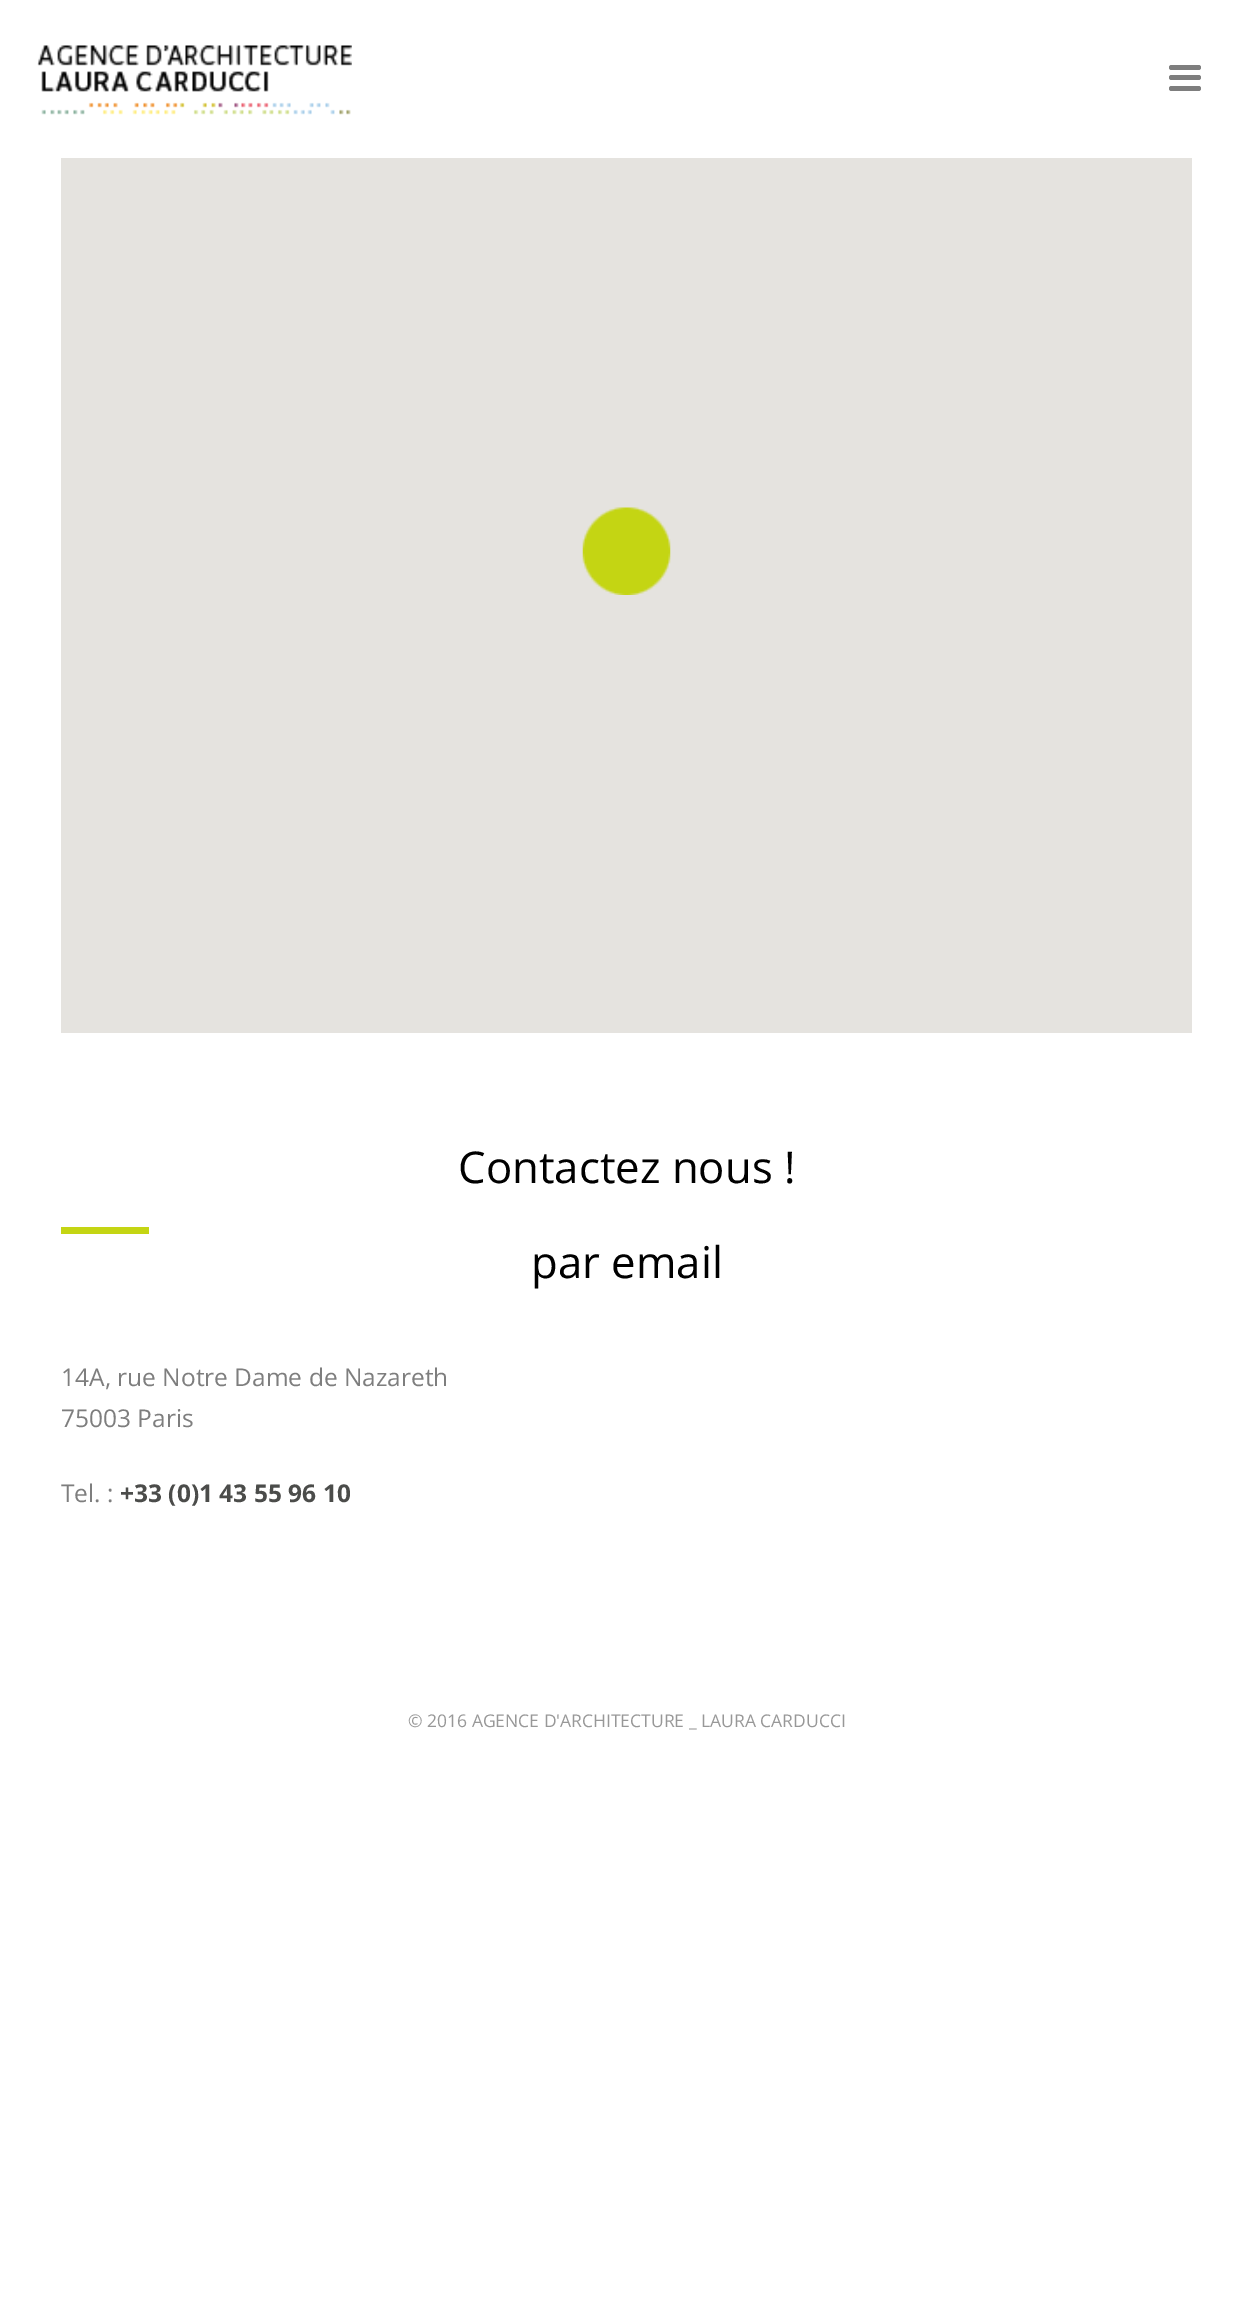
%!PS
<< /PageSize [1253 2305] >> setpagedevice
/f/fill load def
/C { dup -16 bitshift 255 div exch dup -8 bitshift 255 and 255 div exch 255 and 255 div setrgbcolor } def
/F { [ exch dup neg 0 0 3 -1 roll 0 0 ] selectfont } def
/T { moveto show } def
/R { rectfill } def
/Q { 5 dict begin { /r /h /w /y /x } { exch def } forall
  x r add y moveto x w add y 2 copy h add r arct x w add y h add x 1 index r arct
  x y h add x y r arct x y 2 copy exch w add exch r arct closepath end } def
/I { 5 dict begin { /h /w /y /x /name } { exch def } forall
  gsave x y translate w h scale
  w h 8 [w 0 0 h 0 0] name (r) file false 3 colorimage grestore end } def
0 2305 translate 1 -1 scale
4 setmiterlimit
16#FFFFFF C
0 0 1253 2305 R
(1.rgb) 37 45 315 70 I
16#7E7E7E C
1169 65 32 5 2.5 Q f
1169 75 32 5 2.5 Q f
1169 86 32 5 2.5 Q f
16#E5E3DF C
61 158 1131 875 R
(2.rgb) 582 507 89 88 I
/OpenSans-Regular 43.75 F
16#000000 C
(Contactez nous !) 458 1183 T
16#C4D513 C
61 1227 88 7 R
16#000000 C
(par email) 531 1278 T
/OpenSans-Regular 24.5 F
16#7E7E7E C
(14A, rue Notre Dame de Nazareth) 61 1386 T
(75003 Paris) 61 1427 T
(Tel. :) 61 1502 T
/OpenSans-Bold 24.5 F
16#4B4C4A C
(+33 \(0\)1 43 55 96 10) 120 1502 T
/OpenSans-Regular 17.5 F
16#989898 C
(© 2016 AGENCE D'ARCHITECTURE _ LAURA CARDUCCI) 408 1727 T
showpage
